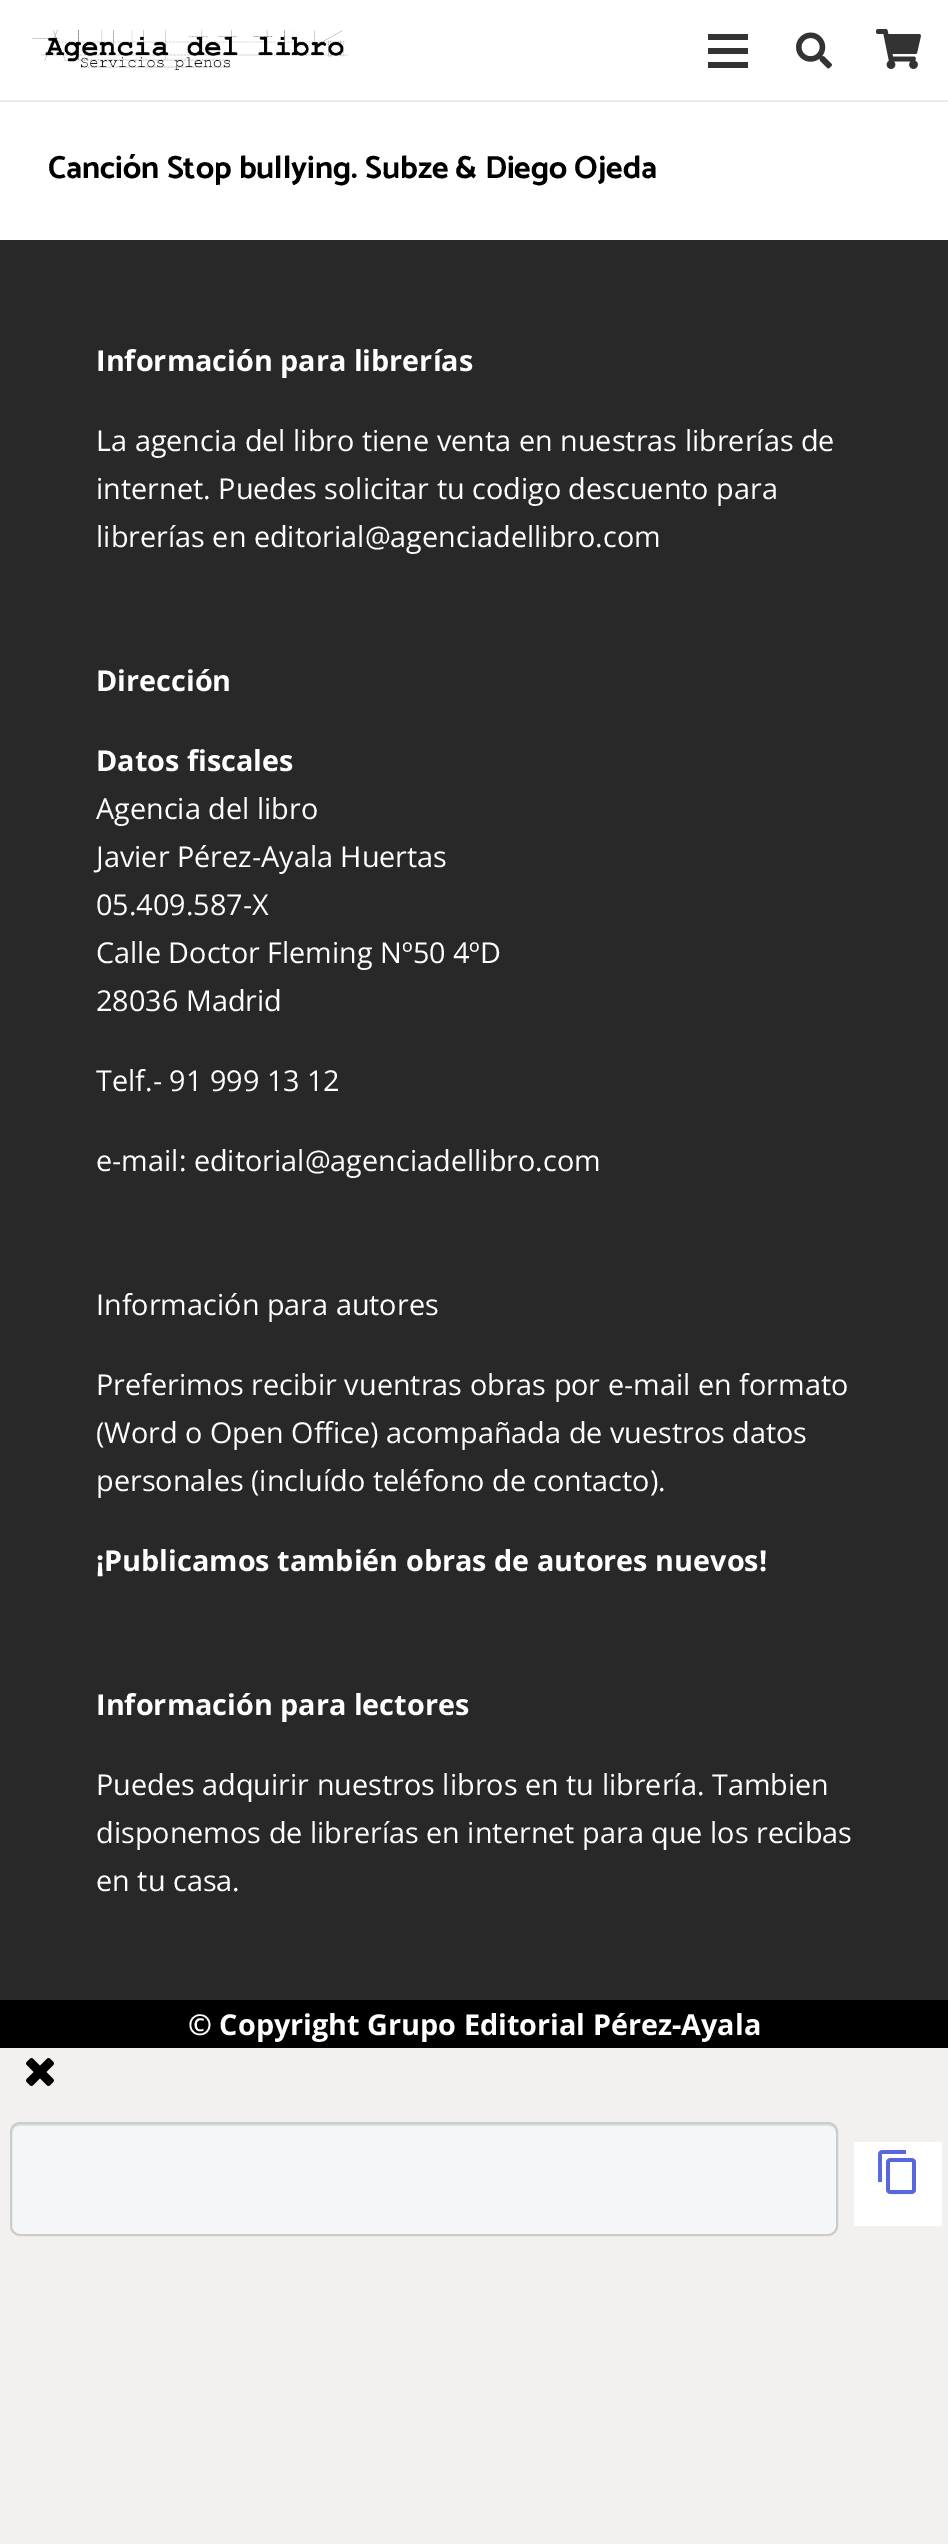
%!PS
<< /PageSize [948 2544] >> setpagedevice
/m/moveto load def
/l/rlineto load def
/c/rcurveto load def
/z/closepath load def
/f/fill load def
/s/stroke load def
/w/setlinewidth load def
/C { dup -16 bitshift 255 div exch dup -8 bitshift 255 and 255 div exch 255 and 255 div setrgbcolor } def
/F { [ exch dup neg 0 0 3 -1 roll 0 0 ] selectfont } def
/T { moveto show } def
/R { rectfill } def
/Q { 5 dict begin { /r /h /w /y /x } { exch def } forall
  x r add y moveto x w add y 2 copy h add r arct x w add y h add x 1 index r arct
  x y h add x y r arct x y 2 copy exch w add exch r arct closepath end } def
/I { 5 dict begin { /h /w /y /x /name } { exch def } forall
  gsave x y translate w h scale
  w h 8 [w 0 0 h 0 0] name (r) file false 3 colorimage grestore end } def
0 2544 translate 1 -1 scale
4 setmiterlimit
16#F2F1F0 C
0 0 948 2544 R
16#FFFFFF C
0 0 948 240 R
16#EBEBEB C
0 100 948 2 R
(1.rgb) 32 30 316 40 I
16#333333 C
708 48 40 6 R
708 34 40 6 R
708 62 40 6 R
(2.rgb) 796 32 36 37 I
(3.rgb) 876 29 45 40 I
/Catamaran-Thin 32 F
16#000000 C
(Canción Stop bullying. Subze & Diego Ojeda) 48 178 T
16#282828 C
0 240 948 1760 R
/OpenSans-Bold 28.8 F
16#FFFFFF C
(Información para librerías) 96 371 T
/OpenSans-Regular 28.8 F
(La agencia del libro tiene venta en nuestras librerías de) 96 451 T
(internet. Puedes solicitar tu codigo descuento para) 96 499 T
(librerías en editorial@agenciadellibro.com) 96 547 T
/OpenSans-Bold 28.8 F
(Dirección) 96 691 T
(Datos fiscales) 96 771 T
/OpenSans-Regular 28.8 F
(Agencia del libro) 96 819 T
(Javier Pérez-Ayala Huertas) 96 867 T
(05.409.587-X) 96 915 T
(Calle Doctor Fleming Nº50 4ºD) 96 963 T
(28036 Madrid) 96 1011 T
(Telf.- 91 999 13 12) 96 1091 T
(e-mail: editorial@agenciadellibro.com) 96 1171 T
(Información para autores) 96 1315 T
(Preferimos recibir vuentras obras por e-mail en formato) 96 1395 T
(\(Word o Open Office\) acompañada de vuestros datos) 96 1443 T
(personales \(incluído teléfono de contacto\).) 96 1491 T
/OpenSans-Bold 28.8 F
(¡Publicamos también obras de autores nuevos!) 96 1571 T
(Información para lectores) 96 1715 T
/OpenSans-Regular 28.8 F
(Puedes adquirir nuestros libros en tu librería. Tambien) 96 1795 T
(disponemos de librerías en internet para que los recibas) 96 1843 T
(en tu casa.) 96 1891 T
16#000000 C
0 2000 948 48 R
/OpenSans-Bold 28.8 F
16#FFFFFF C
(© Copyright Grupo Editorial Pérez-Ayala) 188 2035 T
(4.rgb) 26 2058 28 28 I
16#F5F6F7 C
10 2122 828 114 10 Q f
16#E1E2E3 C
20 2126 m 808 0 l 5 0 8 3 8 8 c 0 -2 l 0 -4 -4 -8 -8 -8 c -808 0 l -4 0 -8 4 -8 8 c 0 2 l 0 -5 3 -8 8 -8 c z f
16#CCCCCC C
2 w
11 2123 826 112 9 Q s
16#FFFFFF C
854 2142 88 84 R
(5.rgb) 878 2150 38 45 I
showpage
